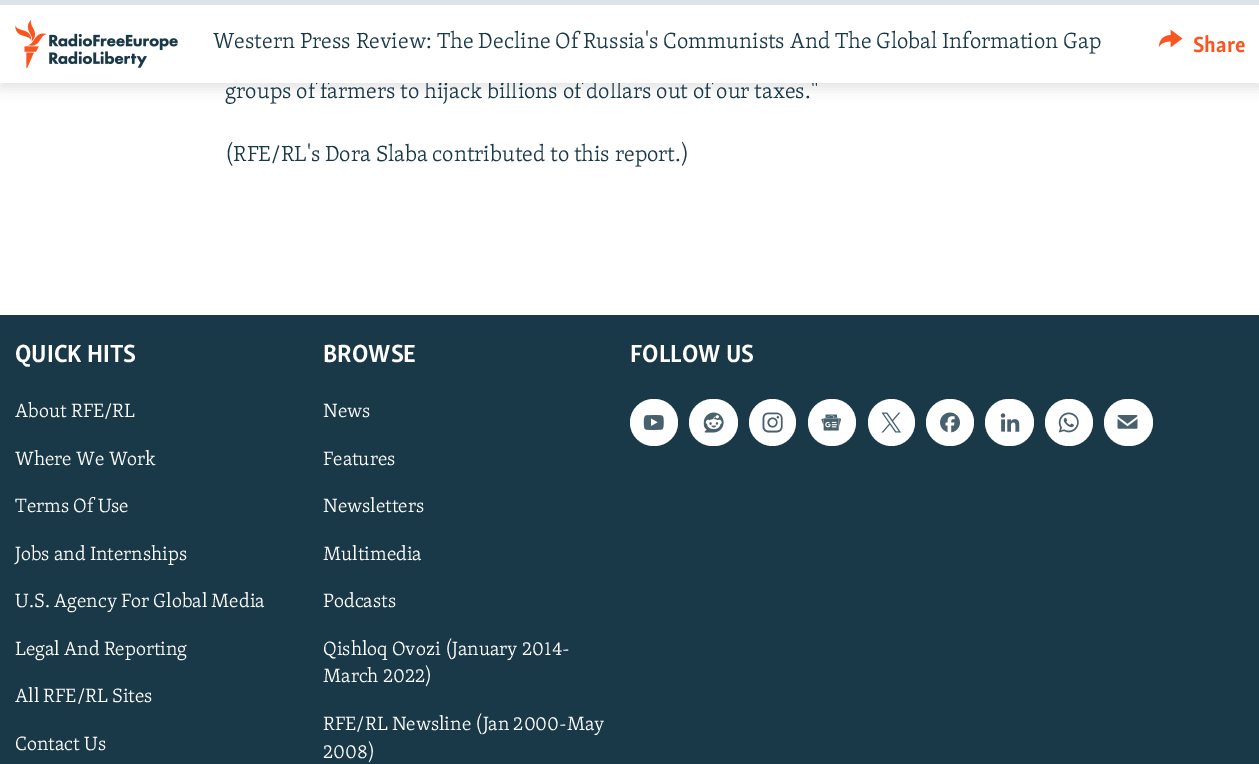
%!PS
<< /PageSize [1259 764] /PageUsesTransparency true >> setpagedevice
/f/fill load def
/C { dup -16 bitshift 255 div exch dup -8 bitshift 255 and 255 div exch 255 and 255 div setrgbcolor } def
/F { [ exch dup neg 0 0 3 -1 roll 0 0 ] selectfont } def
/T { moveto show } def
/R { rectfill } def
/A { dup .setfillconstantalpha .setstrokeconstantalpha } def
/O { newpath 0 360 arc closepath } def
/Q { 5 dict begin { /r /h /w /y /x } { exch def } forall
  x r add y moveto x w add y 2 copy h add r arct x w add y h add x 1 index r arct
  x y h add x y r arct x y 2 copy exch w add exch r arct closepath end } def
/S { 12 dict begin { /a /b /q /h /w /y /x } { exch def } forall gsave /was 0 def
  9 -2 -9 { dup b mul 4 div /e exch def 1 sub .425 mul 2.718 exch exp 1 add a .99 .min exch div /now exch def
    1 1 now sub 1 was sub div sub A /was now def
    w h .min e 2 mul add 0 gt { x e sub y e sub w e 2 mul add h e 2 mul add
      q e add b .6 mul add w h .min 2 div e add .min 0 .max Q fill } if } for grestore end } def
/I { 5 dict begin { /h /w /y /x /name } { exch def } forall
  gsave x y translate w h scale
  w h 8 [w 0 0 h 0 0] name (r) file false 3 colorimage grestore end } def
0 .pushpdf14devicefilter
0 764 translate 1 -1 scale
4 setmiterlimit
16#FFFFFF C
0 0 1259 764 R
16#000000 C
0 6 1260 83 0 6 .1 S
/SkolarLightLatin-Light 22.5 F
16#1A3948 C
(groups of farmers to hijack billions of dollars out of our taxes.") 225 98 T
16#FFFFFF C
0 5 1259 78 R
16#DCE4E8 C
0 0 1259 5 R
(1.rgb) 15 19 163 49 I
16#1A3948 C
(Western Press Review: The Decline Of Russia's Communists And The Global Information Gap) 213 48 T
(2.rgb) 1158 29 25 19 I
/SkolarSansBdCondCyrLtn-Bold 22.5 F
16#FA5420 C
(Share) 1193 52 T
/SkolarLightLatin-Light 22.5 F
16#1A3948 C
(\(RFE/RL's Dora Slaba contributed to this report.\)) 225 161 T
0 315 1259 449 R
/SkolarSansBdCondCyrLtn-Bold 25.5 F
16#FFFFFF C
(QUICK HITS) 15 362 T
/SkolarLightLatin-Light 19.75 F
(About RFE/RL) 15 417 T
(Where We Work) 15 465 T
(Terms Of Use) 15 512 T
(Jobs and Internships) 15 560 T
(U.S. Agency For Global Media) 15 607 T
(Legal And Reporting) 15 655 T
(All RFE/RL Sites) 15 702 T
(Contact Us) 15 750 T
/SkolarSansBdCondCyrLtn-Bold 25.5 F
(BROWSE) 323 362 T
/SkolarLightLatin-Light 19.75 F
(News) 323 417 T
(Features) 323 465 T
(Newsletters) 323 512 T
(Multimedia) 323 560 T
(Podcasts) 323 607 T
(Qishloq Ovozi \(January 2014-) 323 655 T
(March 2022\)) 323 682 T
(RFE/RL Newsline \(Jan 2000-May) 323 730 T
(2008\)) 323 758 T
/SkolarSansBdCondCyrLtn-Bold 25.5 F
(FOLLOW US) 630 362 T
630 399 48 47 23.5 Q f
(3.rgb) 643 415 21 15 I
689 399 49 47 23.5 Q f
(4.rgb) 703 412 21 21 I
772.5 422.5 23.5 O f
(5.rgb) 762 412 21 21 I
808 399 48 47 23.5 Q f
(6.rgb) 821 414 21 17 I
891.5 422.5 23.5 O f
(7.rgb) 881 412 20 21 I
926 399 48 47 23.5 Q f
(8.rgb) 940 412 20 21 I
985 399 49 47 23.5 Q f
(9.rgb) 1000 413 20 19 I
1045 399 48 47 23.5 Q f
(10.rgb) 1058 412 21 21 I
1104 399 49 47 23.5 Q f
(11.rgb) 1117 415 21 14 I
.poppdf14devicefilter showpage
